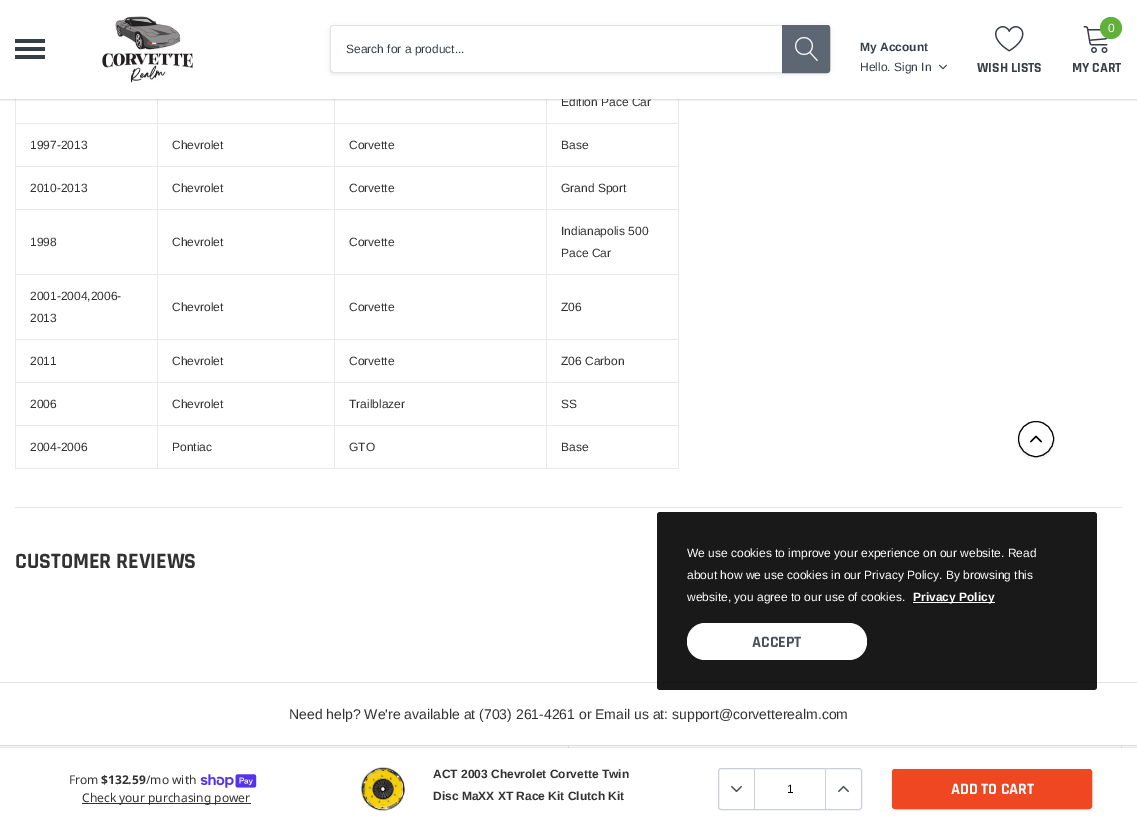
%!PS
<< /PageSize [1137 830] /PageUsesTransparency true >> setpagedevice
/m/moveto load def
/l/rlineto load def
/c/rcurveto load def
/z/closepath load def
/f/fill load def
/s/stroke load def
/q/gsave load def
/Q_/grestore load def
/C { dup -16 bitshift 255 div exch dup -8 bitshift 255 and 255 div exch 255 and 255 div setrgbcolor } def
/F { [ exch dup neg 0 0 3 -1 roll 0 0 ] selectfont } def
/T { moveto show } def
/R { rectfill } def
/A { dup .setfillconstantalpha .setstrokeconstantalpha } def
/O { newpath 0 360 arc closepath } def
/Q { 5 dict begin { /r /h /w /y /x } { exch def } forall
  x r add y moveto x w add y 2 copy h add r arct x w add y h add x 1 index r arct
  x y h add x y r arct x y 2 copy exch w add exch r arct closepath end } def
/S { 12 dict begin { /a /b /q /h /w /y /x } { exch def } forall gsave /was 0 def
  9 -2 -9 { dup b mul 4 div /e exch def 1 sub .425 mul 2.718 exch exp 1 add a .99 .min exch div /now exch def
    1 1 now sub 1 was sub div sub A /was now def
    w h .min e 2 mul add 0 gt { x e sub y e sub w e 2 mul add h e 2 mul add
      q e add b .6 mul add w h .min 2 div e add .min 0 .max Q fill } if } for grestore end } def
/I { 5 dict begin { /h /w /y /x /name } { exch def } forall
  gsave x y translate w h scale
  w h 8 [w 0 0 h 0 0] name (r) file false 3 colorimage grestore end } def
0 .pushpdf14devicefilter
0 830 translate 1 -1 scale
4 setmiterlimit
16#FFFFFF C
0 0 1137 830 R
16#E8E9EB C
546 123 133 1 R
546 166 133 1 R
546 209 133 1 R
546 274 133 1 R
546 339 133 1 R
546 382 133 1 R
546 425 133 1 R
678 425 1 44 R
546 468 133 1 R
546 425 1 44 R
334 425 213 1 R
546 382 1 44 R
334 382 213 1 R
546 339 1 44 R
334 339 213 1 R
546 274 1 66 R
334 274 213 1 R
546 209 1 66 R
334 209 213 1 R
546 166 1 44 R
334 166 213 1 R
546 123 1 44 R
334 123 213 1 R
334 468 213 1 R
334 425 1 44 R
157 425 178 1 R
334 382 1 44 R
157 382 178 1 R
334 339 1 44 R
157 339 178 1 R
334 274 1 66 R
157 274 178 1 R
334 209 1 66 R
157 209 178 1 R
334 166 1 44 R
157 166 178 1 R
334 123 1 44 R
157 123 178 1 R
157 468 178 1 R
157 425 1 44 R
15 425 143 1 R
157 382 1 44 R
15 382 143 1 R
157 339 1 44 R
15 339 143 1 R
157 274 1 66 R
15 274 143 1 R
157 209 1 66 R
15 209 143 1 R
157 166 1 44 R
15 166 143 1 R
157 123 1 44 R
15 123 143 1 R
157 99 1 25 R
334 99 1 25 R
546 99 1 25 R
15 468 143 1 R
15 425 1 44 R
15 382 1 44 R
15 339 1 44 R
15 274 1 66 R
15 209 1 66 R
15 166 1 44 R
15 99 1 68 R
678 382 1 44 R
678 339 1 44 R
678 274 1 66 R
678 209 1 66 R
678 166 1 44 R
678 99 1 68 R
16#000000 C
0 1 1137 99 0 1 .1 S
/Arimo-Regular 12 F
16#323232 C
(Edition Pace Car) 561 106 T
0.06 A
16#000000 C
-.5 -.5 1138 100 rectstroke
1 A
16#FFFFFF C
0 0 1137 99 R
16#383E47 C
15 47 30 4 R
15 39 30 4 R
15 55 30 4 R
(1.rgb) 102 16 91 67 I
16#000000 C
330 26 500 48 3 2 .1 S
16#FFFFFF C
330 25 500 48 3 Q f
16#E2E4E8 C
333 25 m 449 0 l 0 48 l -449 0 l -2 0 -3 -1 -3 -3 c 0 -42 l 0 -2 1 -3 3 -3 c z 333 26 m 449 0 l 0 46 l -449 0 l -2 -2 l 0 -42 l 0 -1 1 -2 2 -2 c z eofill
16#383E47 C
(Search for a product...) 346 53 T
16#5D6673 C
782.5 25.5 m 44.5 0 l 1.5 0 2.5 1 2.5 2.5 c 0 42 l 0 1.5 -1 2.5 -2.5 2.5 c -44.5 0 l z q f Q_
s
(2.rgb) 795 37 23 24 I
/Arimo-Bold 12 F
16#383E47 C
(My Account) 860 51 T
/Arimo-Regular 12 F
(Hello. Sign In) 860 71 T
(3.rgb) 939 64 8 6 I
(4.rgb) 1083 26 25 27 I
16#5FB139 C
1111 28 11 O f
16#FFFFFF C
(0) 1108 32 T
/Rajdhani-Bold 14 F
16#383E47 C
(MY CART) 1072 72 T
(5.rgb) 995 26 29 26 I
(WISH LISTS) 977 72 T
/Arimo-Regular 12 F
16#323232 C
(1997-2013) 30 149 T
(Chevrolet) 172 149 T
(Corvette) 349 149 T
(Base) 561 149 T
(2010-2013) 30 192 T
(Chevrolet) 172 192 T
(Corvette) 349 192 T
(Grand Sport) 561 192 T
(1998) 30 246 T
(Chevrolet) 172 246 T
(Corvette) 349 246 T
(Indianapolis 500) 561 235 T
(Pace Car) 561 257 T
(2001-2004,2006-) 30 300 T
(2013) 30 322 T
(Chevrolet) 172 311 T
(Corvette) 349 311 T
(Z06) 561 311 T
(2011) 30 365 T
(Chevrolet) 172 365 T
(Corvette) 349 365 T
(Z06 Carbon) 561 365 T
(2006) 30 408 T
(Chevrolet) 172 408 T
(Trailblazer) 349 408 T
(SS) 561 408 T
(2004-2006) 30 451 T
(Pontiac) 172 451 T
(GTO) 349 451 T
(Base) 561 451 T
16#E2E4E8 C
15 507 1107 1 R
/Rajdhani-Bold 22 F
16#323232 C
(CUSTOMER REVIEWS) 15 568 T
16#E2E4E8 C
0 745 1137 1 R
568 746 1 2 R
1121 746 1 2 R
16#000000 C
0 748 1137 82 0 2 .2 S
16#FFFFFF C
0 748 1137 82 R
/NotoSans-Regular 12 F
16#323232 C
(From) 69 784 T
/NotoSans-Bold 12 F
($132.59) 101 784 T
/NotoSans-Regular 12 F
(/mo with) 146 784 T
(6.rgb) 200 774 57 14 I
82 803 169 1 R
(Check your purchasing power) 82 802 T
(7.rgb) 360 766 45 46 I
/Arimo-Bold 12 F
(ACT 2003 Chevrolet Corvette Twin) 433 778 T
(Disc MaXX XT Race Kit Clutch Kit) 433 800 T
16#CCCFD6 C
718.5 768.5 143 41 2.5 Q s
754 769 1 40 R
(8.rgb) 731 785 11 8 I
/Arimo-Regular 12 F
16#000000 C
(1) 787 793 T
16#CCCFD6 C
825 769 1 40 R
(9.rgb) 838 785 11 8 I
16#000000 C
892 770 200 40 3 1.5 .1 S
16#F04723 C
892.5 769.5 199 39 2.5 Q q f Q_
s
/Rajdhani-Bold 16 F
16#FFFFFF C
(ADD TO CART) 951 794 T
16#000000 C
1018 422 36 36 18 1.5 .1 S
16#FFFFFF C
1036 439 17.5 O q f Q_
16#000000 C
s
(10.rgb) 1030 435 12 8 I
16#E2E4E8 C
0 682 1137 1 R
/Arimo-Regular 14 F
16#323232 C
(Need help? We're available at \(703\) 261-4261 or Email us at: support@corvetterealm.com) 289 719 T
0.9 A
16#000000 C
657 512 440 178 3 Q f
/Arimo-Regular 12 F
1 A
16#FFFFFF C
(We use cookies to improve your experience on our website. Read) 687 557 T
(about how we use cookies in our Privacy Policy. By browsing this) 687 579 T
(website, you agree to our use of cookies.) 687 601 T
913 602 82 1 R
/Arimo-Bold 12 F
(Privacy Policy) 913 601 T
687 623 180 37 18 Q f
/Rajdhani-Bold 16 F
16#4C5159 C
(ACCEPT) 752 647 T
.poppdf14devicefilter showpage
